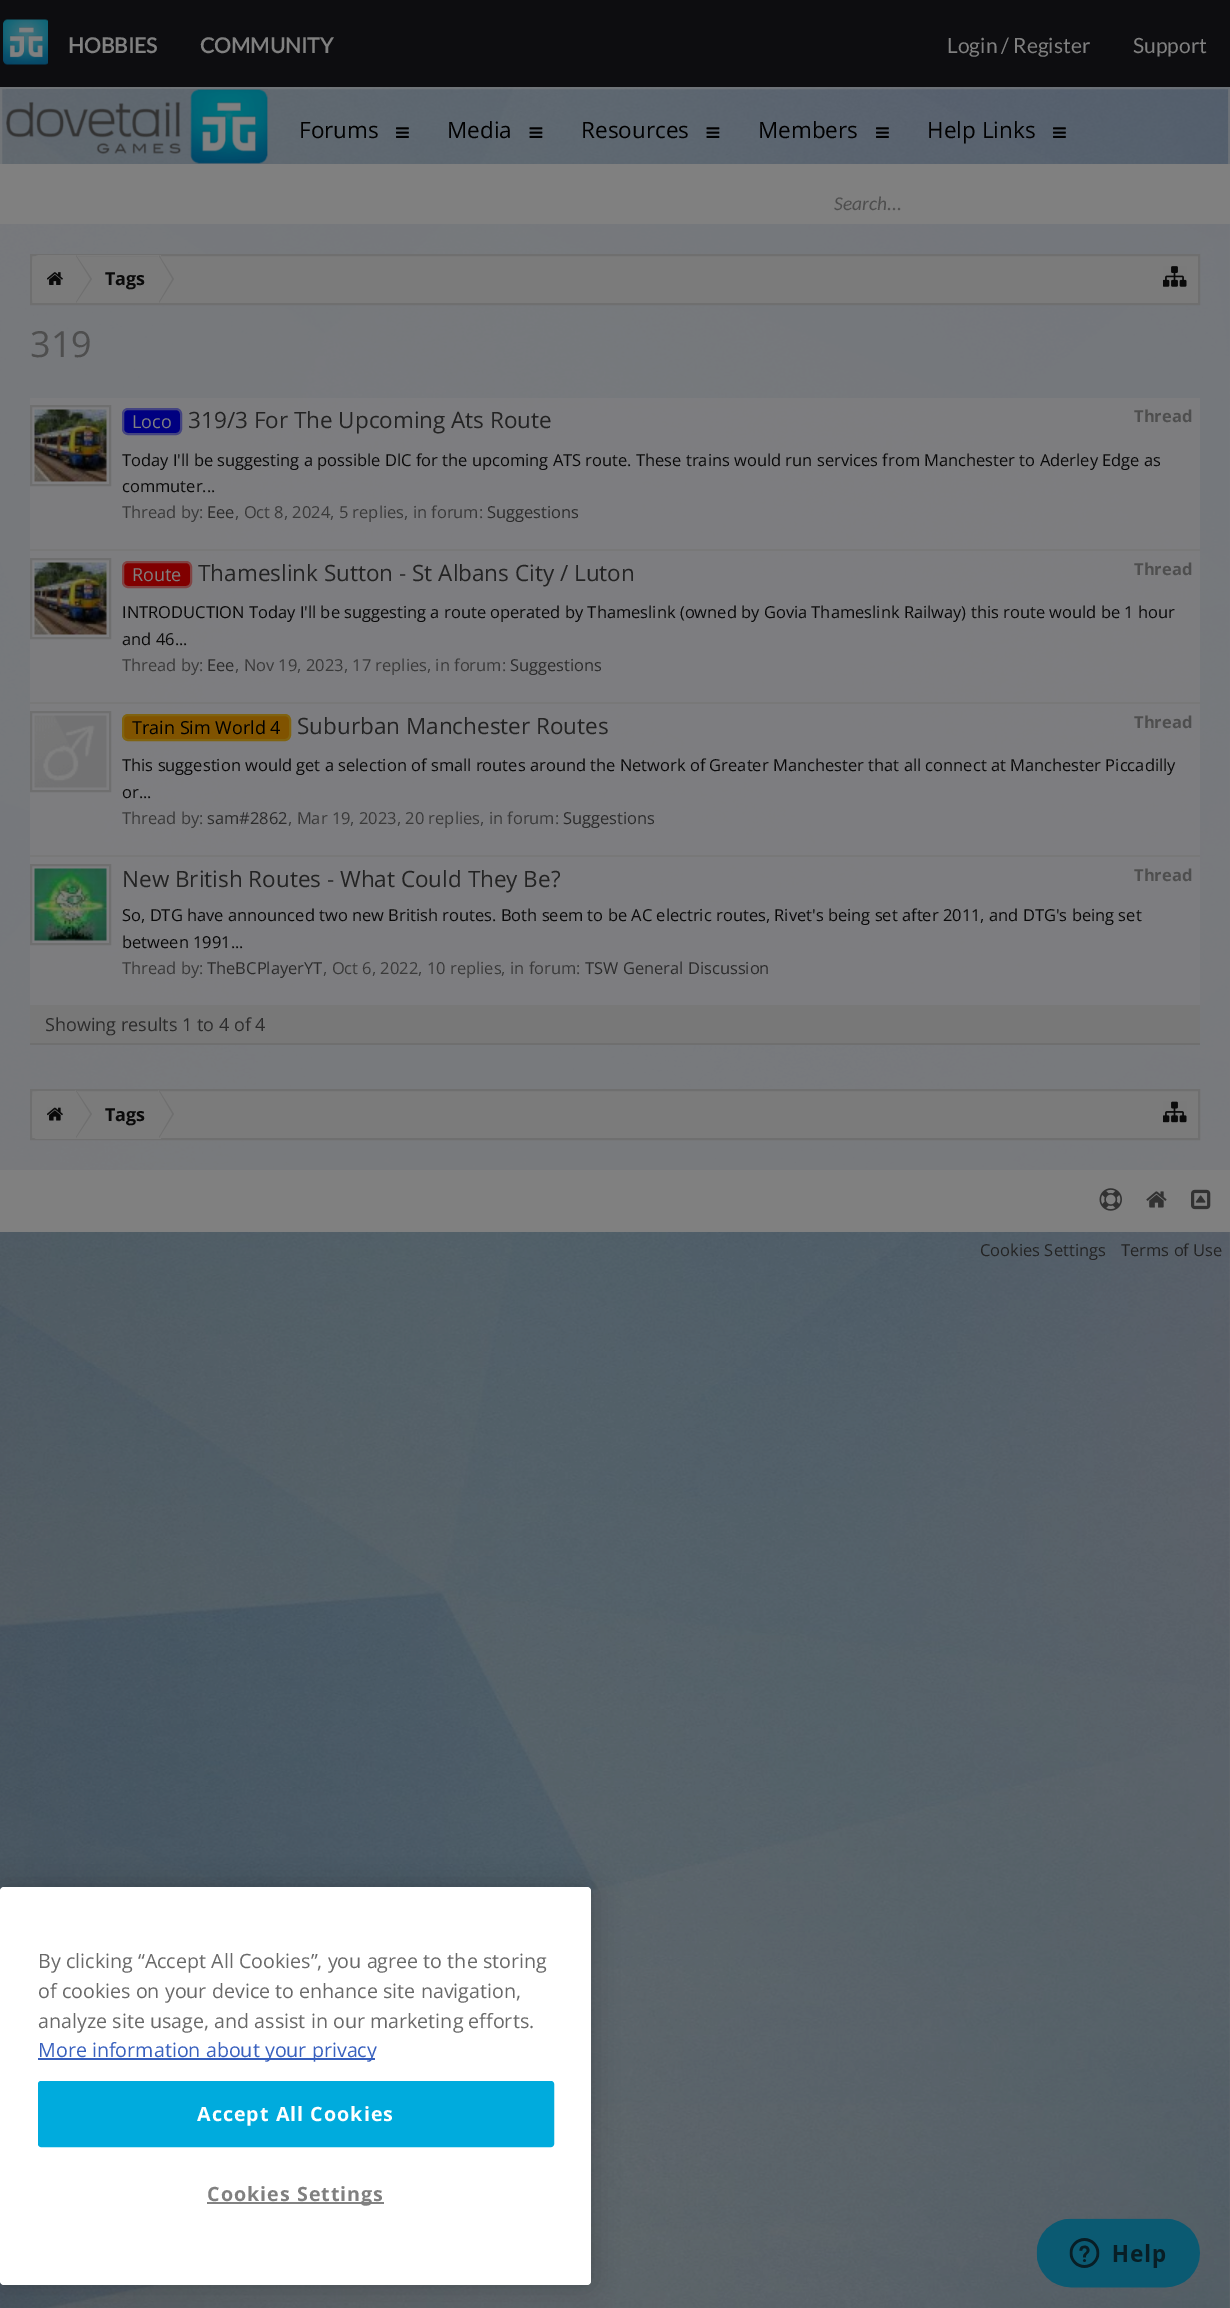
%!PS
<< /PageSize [1230 2308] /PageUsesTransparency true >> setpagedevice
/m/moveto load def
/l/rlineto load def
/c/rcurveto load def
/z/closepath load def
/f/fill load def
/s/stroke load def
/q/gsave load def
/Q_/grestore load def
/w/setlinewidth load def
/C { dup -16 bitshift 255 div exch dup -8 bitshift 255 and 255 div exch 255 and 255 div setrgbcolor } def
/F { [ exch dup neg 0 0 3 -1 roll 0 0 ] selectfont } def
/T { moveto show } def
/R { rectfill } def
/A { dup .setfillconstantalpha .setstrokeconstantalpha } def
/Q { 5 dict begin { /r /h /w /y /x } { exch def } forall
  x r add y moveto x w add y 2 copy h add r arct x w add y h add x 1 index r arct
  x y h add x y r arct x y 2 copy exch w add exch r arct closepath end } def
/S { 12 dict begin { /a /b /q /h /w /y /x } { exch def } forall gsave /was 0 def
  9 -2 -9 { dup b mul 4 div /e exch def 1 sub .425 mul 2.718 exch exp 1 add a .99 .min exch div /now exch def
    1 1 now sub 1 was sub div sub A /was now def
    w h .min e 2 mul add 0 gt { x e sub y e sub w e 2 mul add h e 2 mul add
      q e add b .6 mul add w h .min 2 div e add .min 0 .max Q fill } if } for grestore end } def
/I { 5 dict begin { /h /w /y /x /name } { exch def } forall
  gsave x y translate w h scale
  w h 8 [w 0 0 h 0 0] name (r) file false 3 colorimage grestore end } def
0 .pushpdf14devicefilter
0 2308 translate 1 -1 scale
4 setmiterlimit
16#FFFFFF C
0 0 1230 2308 R
(1.rgb) 0 87 1230 2221 I
16#0D0D10 C
0 0 1230 87 R
(2.rgb) 3 19 45 46 I
/Lato-Bold 21 F
16#808080 C
(HOBBIES) 68 53 T
(COMMUNITY) 200 53 T
/Lato-Regular 21 F
(Login / Register) 947 53 T
(Support) 1133 53 T
0.5 A
0 87 1230 77 R
2 w
1 88 1228 82 rectstroke
1 A
(3.rgb) 6 89 262 75 I
/OpenSans-Regular 22.5 F
16#000000 C
(Forums) 299 138 T
(4.rgb) 396 127 13 11 I
(Media) 447 138 T
(5.rgb) 529 127 14 11 I
(Resources) 581 138 T
(6.rgb) 706 127 14 11 I
(Members) 758 138 T
(7.rgb) 876 127 13 11 I
(Help Links) 927 138 T
(8.rgb) 1053 127 13 11 I
16#808080 C
0 164 1230 60 R
/Carlito-Italic 19.5 F
16#4E4E4E C
(Search...) 834 210 T
0.87 A
16#7E7E80 C
0 224 1230 946 R
1 A
16#7B7B7B C
31 255 m 1168 0 l 0 49 l -1168 0 l z q f Q_
16#6F6F6F C
s
q
32 255 1167 48 rectclip
16#7B7B7B C
40 255 m 38 0 l 0 50 l -38 0 l -4.5 0 -8 -3.5 -8 -8 c 0 -34 l 0 -4.5 3.5 -8 8 -8 c z f
Q_
(9.rgb) 47 272 16 13 I
16#7B7B7B C
78 255 83 1 R
16#6F6F6F C
76 303 m 0 -48 l 16 24 l z f
16#7B7B7B C
75 303 m 0 -48 l 15 24 l z f
/OpenSans-Bold 18 F
16#0A0A0A C
(Tags) 105 285 T
16#6F6F6F C
159 303 m 0 -48 l 15 24 l z f
16#7B7B7B C
158 303 m 0 -48 l 14 24 l z f
(10.rgb) 1163 266 24 21 I
/OpenSans-Regular 36 F
16#4E4E4E C
(319) 30 357 T
0.87 A
16#7E7E80 C
30 398 1170 151 R
1 A
16#787878 C
30 549 1170 2 R
16#6F6F6F C
31 406 79 79 rectstroke
(11.rgb) 34 409 73 73 I
16#000080 C
123 409 58 25 5 Q q f Q_
16#444480 C
s
/OpenSans-Regular 18 F
16#808080 C
(Loco) 132 428 T
/OpenSans-Regular 22.5 F
16#232323 C
(319/3 For The Upcoming Ats Route) 188 428 T
/OpenSans-Bold 16.5 F
16#4E4E4E C
(Thread) 1134 422 T
/OpenSans-Regular 16.5 F
16#0A0A0A C
(Today I'll be suggesting a possible DlC for the upcoming ATS route. These trains would run services from Manchester to Aderley Edge as) 122 466 T
(commuter...) 122 492 T
16#393939 C
(Thread by:) 122 518 T
16#2B2B2B C
(Eee) 207 518 T
16#393939 C
(, Oct 8, 2024, 5 replies, in forum:) 235 518 T
16#2B2B2B C
(Suggestions) 487 518 T
0.87 A
16#7E7E80 C
30 551 1170 151 R
1 A
16#787878 C
30 702 1170 2 R
16#6F6F6F C
31 559 79 79 rectstroke
(11.rgb) 34 562 73 73 I
16#800000 C
123 562 68 25 5 Q q f Q_
16#804444 C
s
/OpenSans-Regular 18 F
16#808080 C
(Route) 132 581 T
/OpenSans-Regular 22.5 F
16#232323 C
(Thameslink Sutton - St Albans City / Luton) 198 581 T
/OpenSans-Bold 16.5 F
16#4E4E4E C
(Thread) 1134 575 T
/OpenSans-Regular 16.5 F
16#0A0A0A C
(INTRODUCTION Today I'll be suggesting a route operated by Thameslink \(owned by Govia Thameslink Railway\) this route would be 1 hour) 122 618 T
(and 46...) 122 645 T
16#393939 C
(Thread by:) 122 671 T
16#2B2B2B C
(Eee) 207 671 T
16#393939 C
(, Nov 19, 2023, 17 replies, in forum:) 235 671 T
16#2B2B2B C
(Suggestions) 510 671 T
0.87 A
16#7E7E80 C
30 704 1170 151 R
1 A
16#787878 C
30 855 1170 2 R
16#6F6F6F C
31 712 79 79 rectstroke
(12.rgb) 34 715 73 73 I
16#805300 C
123 715 167 25 5 Q q f Q_
16#806310 C
s
/OpenSans-Regular 18 F
16#000000 C
(Train Sim World 4) 132 734 T
/OpenSans-Regular 22.5 F
16#232323 C
(Suburban Manchester Routes) 297 734 T
/OpenSans-Bold 16.5 F
16#4E4E4E C
(Thread) 1134 728 T
/OpenSans-Regular 16.5 F
16#0A0A0A C
(This suggestion would get a selection of small routes around the Network of Greater Manchester that all connect at Manchester Piccadilly) 122 771 T
(or...) 122 798 T
16#393939 C
(Thread by:) 122 824 T
16#2B2B2B C
(sam#2862) 207 824 T
16#393939 C
(, Mar 19, 2023, 20 replies, in forum:) 288 824 T
16#2B2B2B C
(Suggestions) 563 824 T
0.87 A
16#7E7E80 C
30 857 1170 148 R
1 A
16#787878 C
30 1005 1170 38 R
16#6F6F6F C
31 865 79 79 rectstroke
(13.rgb) 34 868 73 73 I
/OpenSans-Regular 22.5 F
16#232323 C
(New British Routes - What Could They Be?) 122 887 T
/OpenSans-Bold 16.5 F
16#4E4E4E C
(Thread) 1134 881 T
/OpenSans-Regular 16.5 F
16#0A0A0A C
(So, DTG have announced two new British routes. Both seem to be AC electric routes, Rivet's being set after 2011, and DTG's being set) 122 921 T
(between 1991...) 122 948 T
16#393939 C
(Thread by:) 122 974 T
16#2B2B2B C
(TheBCPlayerYT) 207 974 T
16#393939 C
(, Oct 6, 2022, 10 replies, in forum:) 323 974 T
16#2B2B2B C
(TSW General Discussion) 585 974 T
16#6F6F6F C
30 1043 1170 2 R
/OpenSans-Regular 18 F
16#2B2B2B C
(Showing results 1 to 4 of 4) 45 1031 T
16#7B7B7B C
31 1090 m 1168 0 l 0 49 l -1168 0 l z q f Q_
16#6F6F6F C
s
q
32 1091 1167 48 rectclip
16#7B7B7B C
40 1091 m 38 0 l 0 49 l -38 0 l -4.5 0 -8 -3.5 -8 -8 c 0 -33 l 0 -4.5 3.5 -8 8 -8 c z f
Q_
(14.rgb) 47 1107 16 14 I
76 1138 m 0 -48 l 16 24 l z f
16#7B7B7B C
75 1138 m 0 -48 l 15 24 l z f
78 1138 83 1 R
/OpenSans-Bold 18 F
16#0A0A0A C
(Tags) 105 1121 T
16#6F6F6F C
159 1138 m 0 -48 l 15 24 l z f
16#7B7B7B C
158 1138 m 0 -48 l 14 24 l z f
(15.rgb) 1163 1101 24 22 I
16#808080 C
0 1170 1230 62 R
(16.rgb) 1099 1188 23 23 I
(17.rgb) 1146 1191 21 17 I
(18.rgb) 1191 1189 20 21 I
/OpenSans-Regular 16.5 F
16#232323 C
(Cookies Settings) 980 1256 T
(Terms of Use) 1121 1256 T
16#000000 C
0 1887 591 398 4 13.5 .2 S
16#FFFFFF C
0 1887 591 398 4 Q f
/OpenSans-Regular 19.7 F
16#696969 C
(By clicking “Accept All Cookies”, you agree to the storing) 38 1968 T
(of cookies on your device to enhance site navigation,) 38 1998 T
(analyze site usage, and assist in our marketing efforts.) 38 2028 T
16#3860BE C
38 2058 337 2 R
(More information about your privacy) 38 2057 T
16#00ABDD C
39 2082 514 64 2 Q q f Q_
s
/OpenSans-Bold 19.7 F
16#FFFFFF C
197 2121 m 1 0 (Accept All Cookies) ashow
16#828282 C
207 2202 177 2 R
16#808080 C
207 2201 m 1 0 (Cookies Settings) ashow
(19.rgb) 1036 2218 164 70 I
.poppdf14devicefilter showpage
